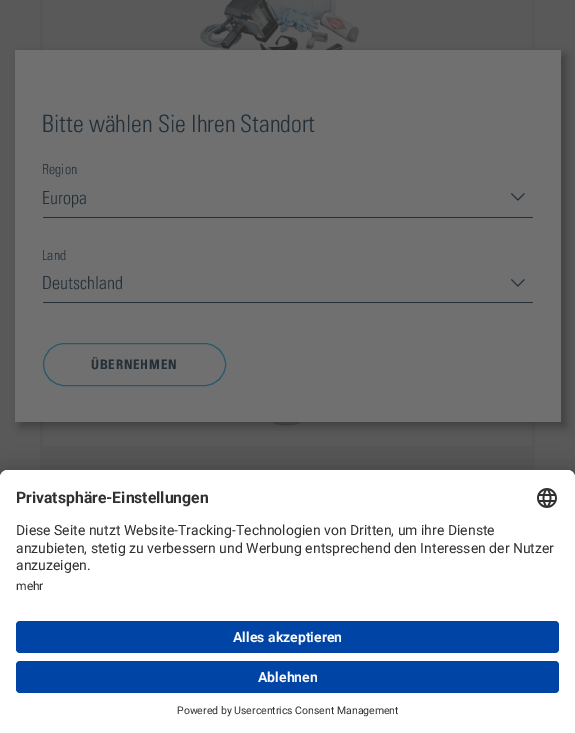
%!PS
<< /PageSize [575 733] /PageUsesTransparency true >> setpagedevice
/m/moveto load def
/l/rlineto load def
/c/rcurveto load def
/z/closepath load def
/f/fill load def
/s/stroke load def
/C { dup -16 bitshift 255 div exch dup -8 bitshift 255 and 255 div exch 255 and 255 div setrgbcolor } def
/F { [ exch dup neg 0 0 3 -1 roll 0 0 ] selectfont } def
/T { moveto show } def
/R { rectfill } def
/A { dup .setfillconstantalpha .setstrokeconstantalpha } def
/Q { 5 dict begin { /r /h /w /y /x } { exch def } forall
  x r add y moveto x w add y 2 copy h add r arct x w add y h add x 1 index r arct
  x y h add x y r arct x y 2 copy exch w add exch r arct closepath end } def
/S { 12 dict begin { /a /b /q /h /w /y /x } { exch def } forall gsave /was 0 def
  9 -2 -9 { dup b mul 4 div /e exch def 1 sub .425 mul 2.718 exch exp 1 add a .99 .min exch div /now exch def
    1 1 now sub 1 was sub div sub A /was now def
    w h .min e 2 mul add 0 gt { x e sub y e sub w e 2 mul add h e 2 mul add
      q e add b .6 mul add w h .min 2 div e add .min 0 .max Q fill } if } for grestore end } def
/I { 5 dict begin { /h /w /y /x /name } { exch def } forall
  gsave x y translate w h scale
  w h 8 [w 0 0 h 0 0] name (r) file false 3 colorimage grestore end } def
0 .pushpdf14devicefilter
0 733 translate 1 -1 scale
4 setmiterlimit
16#595959 C
0 0 575 733 R
16#565656 C
40 0 495 50 R
16#595959 C
43 0 489 50 R
(1.rgb) 200 0 159 50 I
16#565656 C
40 422 495 48 R
16#595959 C
43 422 489 24 R
(2.rgb) 196 422 182 4 I
16#242424 C
20 55 546 372 0 5 .5 S
16#707070 C
15 50 546 372 R
/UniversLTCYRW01-Light 24 F
16#242F38 C
(Bitte wählen Sie Ihren Standort) 42 132 T
/UniversLTCYRW01-Light 14 F
(Region) 42 174 T
43 217 490 1 R
/UniversLTCYRW01-Light 18 F
(Europa) 42 204 T
(3.rgb) 511 193 14 8 I
/UniversLTCYRW01-Light 14 F
(Land) 42 260 T
43 302 490 1 R
/UniversLTCYRW01-Light 18 F
(Deutschland) 42 289 T
(3.rgb) 511 279 14 8 I
16#24596A C
43.5 343.5 182 42 21 Q s
/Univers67-Bold 13 F
16#242F38 C
91 369 m .75 0 (ÜBERNEHMEN) ashow
16#000000 C
0 490 575 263 8 14 .3 S
0 475 575 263 8 13 .22 S
16#FFFFFF C
8 470 m 559 0 l 4.5 0 8 3.5 8 8 c 0 255 l -575 0 l 0 -255 l 0 -4.5 3.5 -8 8 -8 c z f
8 470 m 559 0 l 4.5 0 8 3.5 8 8 c 0 131 l -575 0 l 0 -131 l 0 -4.5 3.5 -8 8 -8 c z f
/Roboto-Bold 15.75 F
16#303030 C
(Privatsphäre-Einstellungen) 16 503 T
(4.rgb) 537 488 20 20 I
/Roboto-Regular 14 F
(Diese Seite nutzt Website-Tracking-Technologien von Dritten, um ihre Dienste) 16 535 T
(anzubieten, stetig zu verbessern und Werbung entsprechend den Interessen der Nutzer) 16 553 T
(anzuzeigen.) 16 570 T
/Roboto-Regular 12 F
(mehr) 16 590 T
16#0045A5 C
16 621 543 32 4 Q f
/Roboto-Bold 14 F
16#FAFAFA C
(Alles akzeptieren) 233 642 T
16#0045A5 C
16 661 543 32 4 Q f
16#FAFAFA C
(Ablehnen) 258 682 T
/Roboto-Regular 10.5 F
16#303030 C
(Powered by Usercentrics Consent Management) 177 714 T
.poppdf14devicefilter showpage
